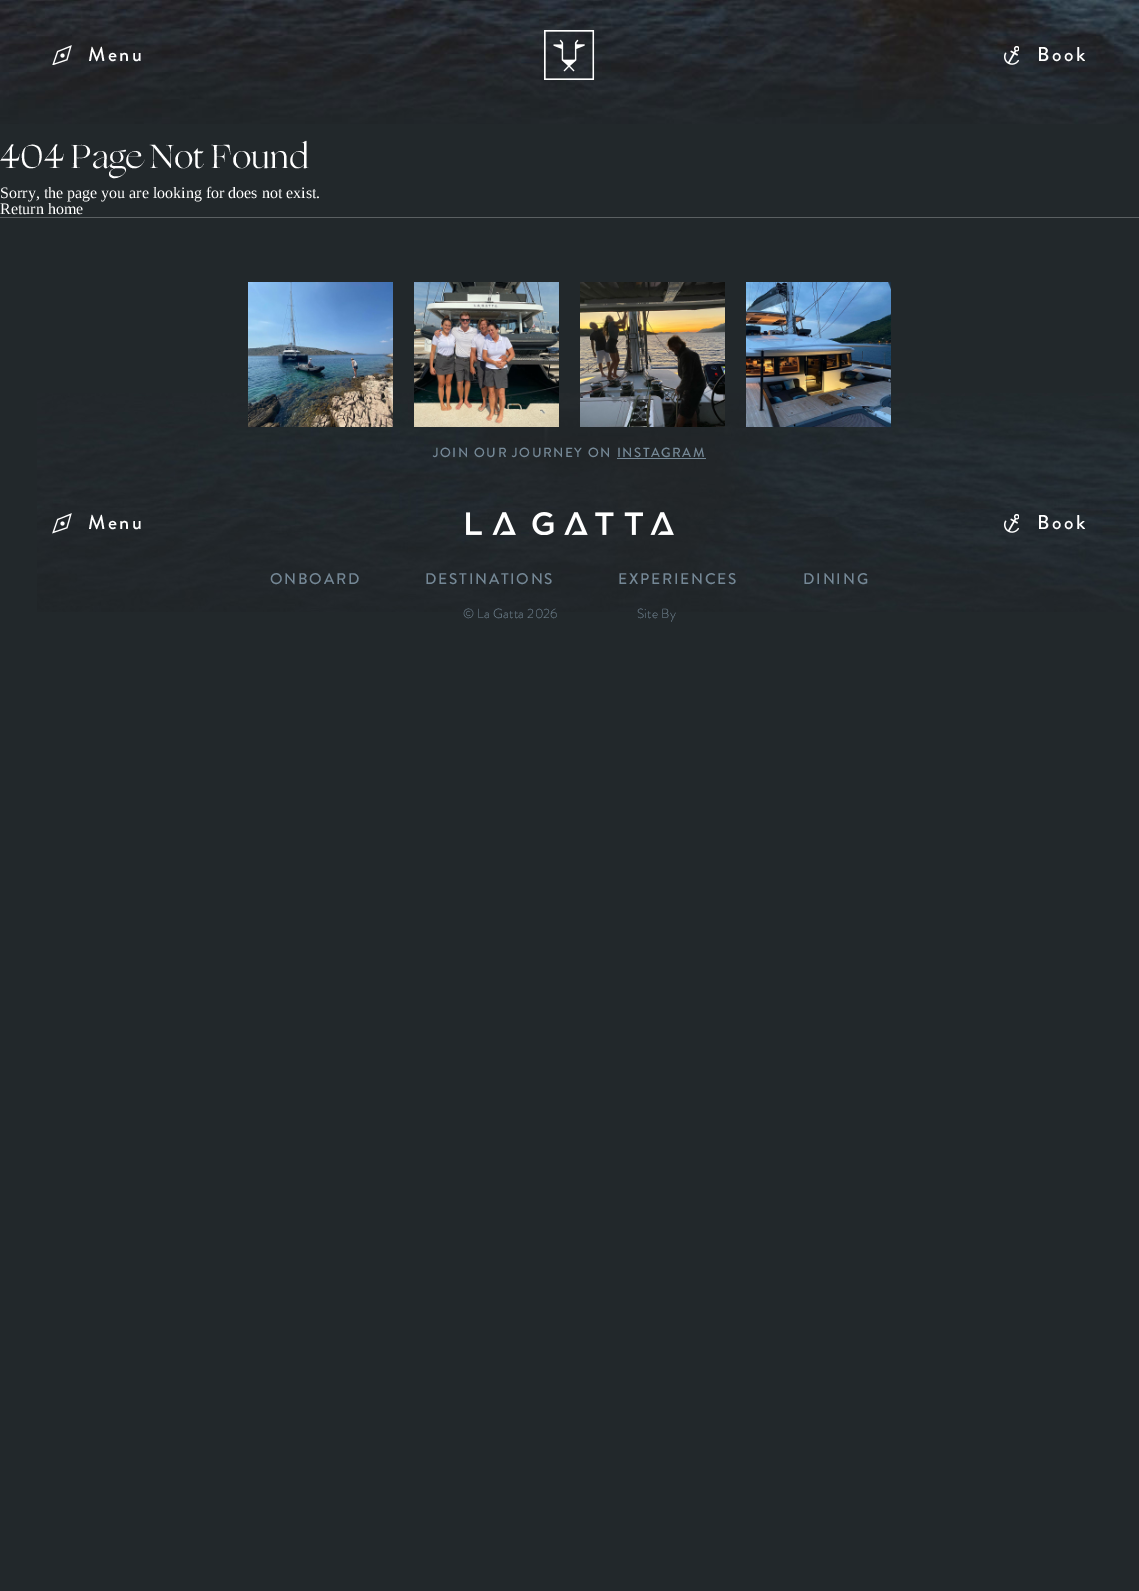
%!PS
<< /PageSize [1139 1591] >> setpagedevice
/m/moveto load def
/C { dup -16 bitshift 255 div exch dup -8 bitshift 255 and 255 div exch 255 and 255 div setrgbcolor } def
/F { [ exch dup neg 0 0 3 -1 roll 0 0 ] selectfont } def
/T { moveto show } def
/R { rectfill } def
/I { 5 dict begin { /h /w /y /x /name } { exch def } forall
  gsave x y translate w h scale
  w h 8 [w 0 0 h 0 0] name (r) file false 3 colorimage grestore end } def
0 1591 translate 1 -1 scale
4 setmiterlimit
16#22282B C
0 0 1139 1591 R
(4.rgb) 0 0 1139 124 I
(1.rgb) 52 45 20 20 I
/BrandonGrotesque-Medium 20 F
16#FFFFFF C
88 61 m 2.5 0 (Menu) ashow
(2.rgb) 544 30 51 50 I
(3.rgb) 1004 46 15 19 I
1037 61 m 2.5 0 (Book) ashow
/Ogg-Regular 33.4 F
(404 Page Not Found) 0 168 T
/LiberationSerif-Regular 16 F
(Sorry, the page you are looking for does not exist.) 0 198 T
(Return home) 0 214 T
16#5B6062 C
0 217 1139 1 R
(5.rgb) 37 393 1102 219 I
(6.rgb) 248 282 145 145 I
(7.rgb) 414 282 145 145 I
(8.rgb) 580 282 145 145 I
(9.rgb) 746 282 145 145 I
/BrandonGrotesque-Medium 13.35 F
16#758896 C
433 457 m 1.5 0 (JOIN OUR JOURNEY ON INSTAGRAM) ashow
617 458 89 1 R
(10.rgb) 52 513 20 21 I
/BrandonGrotesque-Medium 20 F
16#FFFFFF C
88 529 m 2.5 0 (Menu) ashow
(11.rgb) 466 512 208 23 I
(12.rgb) 1004 514 15 19 I
1037 529 m 2.5 0 (Book) ashow
/BrandonGrotesque-Medium 15.5 F
16#758896 C
270 584 m 1.75 0 (ONBOARD) ashow
425 584 m 1.75 0 (DESTINATIONS) ashow
618 584 m 1.75 0 (EXPERIENCES) ashow
803 584 m 1.75 0 (DINING) ashow
/BrandonGrotesque-Light 13.35 F
463 618 m .2 0 (© La Gatta 2026) ashow
637 618 m .2 0 (Site By) ashow
showpage
